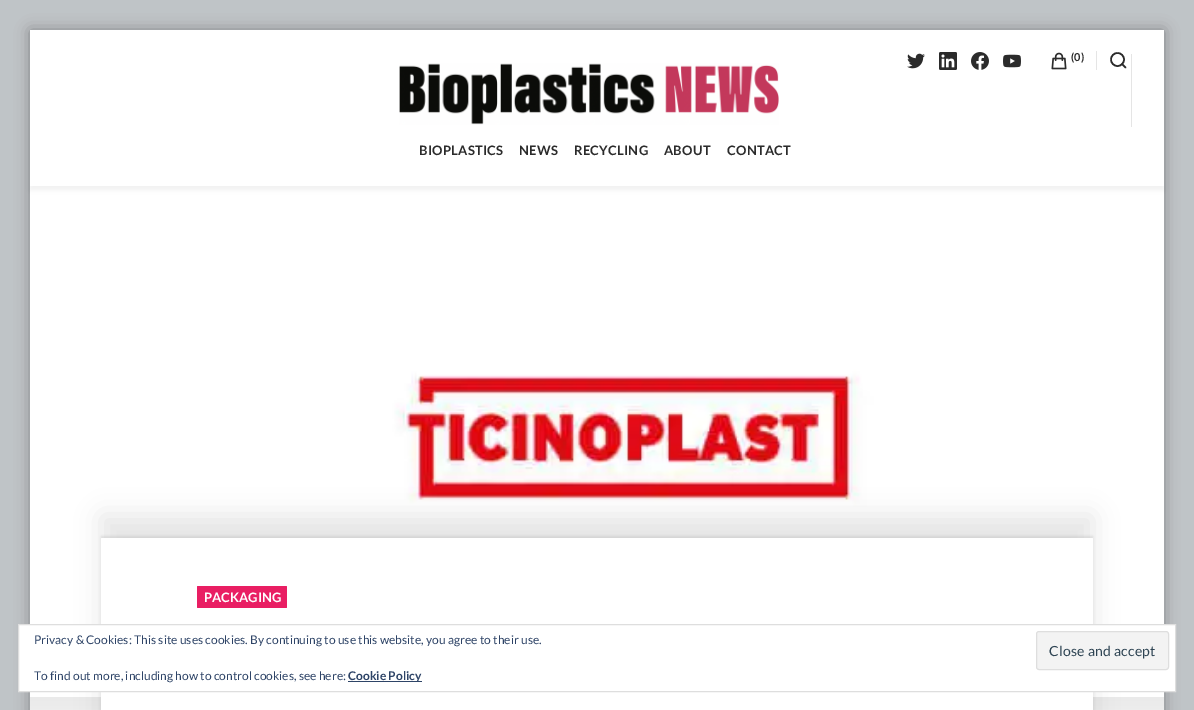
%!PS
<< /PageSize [1194 710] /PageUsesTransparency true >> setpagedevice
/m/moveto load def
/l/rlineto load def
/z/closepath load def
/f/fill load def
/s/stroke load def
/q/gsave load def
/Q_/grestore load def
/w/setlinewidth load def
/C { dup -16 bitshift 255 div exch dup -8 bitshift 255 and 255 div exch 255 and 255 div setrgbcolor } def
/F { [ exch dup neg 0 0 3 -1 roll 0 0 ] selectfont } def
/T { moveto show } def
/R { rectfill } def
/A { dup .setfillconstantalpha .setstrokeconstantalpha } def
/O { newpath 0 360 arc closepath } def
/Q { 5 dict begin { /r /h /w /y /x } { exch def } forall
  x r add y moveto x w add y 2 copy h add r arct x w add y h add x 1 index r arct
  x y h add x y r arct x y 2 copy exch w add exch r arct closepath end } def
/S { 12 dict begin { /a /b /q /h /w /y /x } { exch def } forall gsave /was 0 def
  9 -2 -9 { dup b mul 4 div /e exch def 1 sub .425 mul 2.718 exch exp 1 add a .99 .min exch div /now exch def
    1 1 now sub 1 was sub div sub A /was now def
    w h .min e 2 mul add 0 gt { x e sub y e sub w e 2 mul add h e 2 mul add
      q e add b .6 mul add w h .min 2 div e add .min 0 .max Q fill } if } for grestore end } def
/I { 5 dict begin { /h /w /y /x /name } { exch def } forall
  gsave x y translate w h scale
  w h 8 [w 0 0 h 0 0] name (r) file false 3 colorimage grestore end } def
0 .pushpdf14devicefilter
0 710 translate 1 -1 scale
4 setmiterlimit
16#BFC4C7 C
0 0 1194 710 R
16#000000 C
30 30 1134 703 0 7.5 .3 S
16#FFFFFF C
30 30 1134 156 R
(7.rgb) 30 186 1134 511 I
q
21 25 m 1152 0 l 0 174 l -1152 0 l z 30 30 m 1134 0 l 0 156 l -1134 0 l z eoclip newpath
16#000000 C
30 34 1134 156 0 2.5 .05 S
Q_
(1.rgb) 907 53 18 16 I
(2.rgb) 939 52 18 18 I
(3.rgb) 971 52 18 18 I
(4.rgb) 1003 54 18 14 I
(5.rgb) 1051 52 16 18 I
/Lato-Bold 11 F
16#2B2B2B C
(\(0\)) 1071 61 T
16#E5E5E5 C
1096 51 1 19 R
16#2B2B2B C
1.6 w
1117.5 59.5 6.5 O s
1 setlinecap
1 setlinejoin
1125.5 67.5 m -3.5 -3.5 l s
16#E5E5E5 C
1131 54 1 73 R
(6.rgb) 399 63 380 62 I
/Lato-Bold 13 F
16#2B2B2B C
419 155 m .25 0 (BIOPLASTICS) ashow
519 155 m .25 0 (NEWS) ashow
574 155 m .25 0 (RECYCLING) ashow
664 155 m .25 0 (ABOUT) ashow
727 155 m .25 0 (CONTACT) ashow
q 30 697 m 1134 0 l 0 13 l -1134 0 l z clip newpath
<< /ShadingType 2 /ColorSpace /DeviceRGB /Coords [597 697 597 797] /Extend [true true] /Function << /FunctionType 3 /Domain [0 1] /Functions [<< /FunctionType 2 /Domain [0 1] /C0 [.918 .918 .918] /C1 [1 1 1] /N 1 >> << /FunctionType 2 /Domain [0 1] /C0 [1 1 1] /C1 [1 1 1] /N 1 >>] /Bounds [.84] /Encode [0 1 0 1] >> >> shfill Q_
16#000000 C
101 536 992 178 1 1 .08 S
101 515 992 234 1 12.5 .1 S
16#FFFFFF C
101 538 992 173 1 Q f
16#E91E63 C
197 586 90 22 1 Q f
16#FFFFFF C
(PACKAGING) 204 602 T
18.5 624.5 m 1157 0 l 0 67 l -1157 0 l z q f Q_
16#DEDEDE C
1 w
0 setlinecap
0 setlinejoin
s
/Lato-Regular 12 F
16#2E4467 C
(Privacy & Cookies: This site uses cookies. By continuing to use this website, you agree to their use.) 34 644 T
16#F3F3F3 C
1036.5 631.5 132 38 2.5 Q q f Q_
16#DEDEDE C
s
/Lato-Regular 14 F
16#2E4453 C
1049 656 m .25 0 (Close and accept) ashow
/Lato-Regular 12 F
16#2E4467 C
(To find out more, including how to control cookies, see here:) 34 680 T
348 681 74 1 R
/Lato-Bold 12 F
(Cookie Policy) 348 680 T
.poppdf14devicefilter showpage
